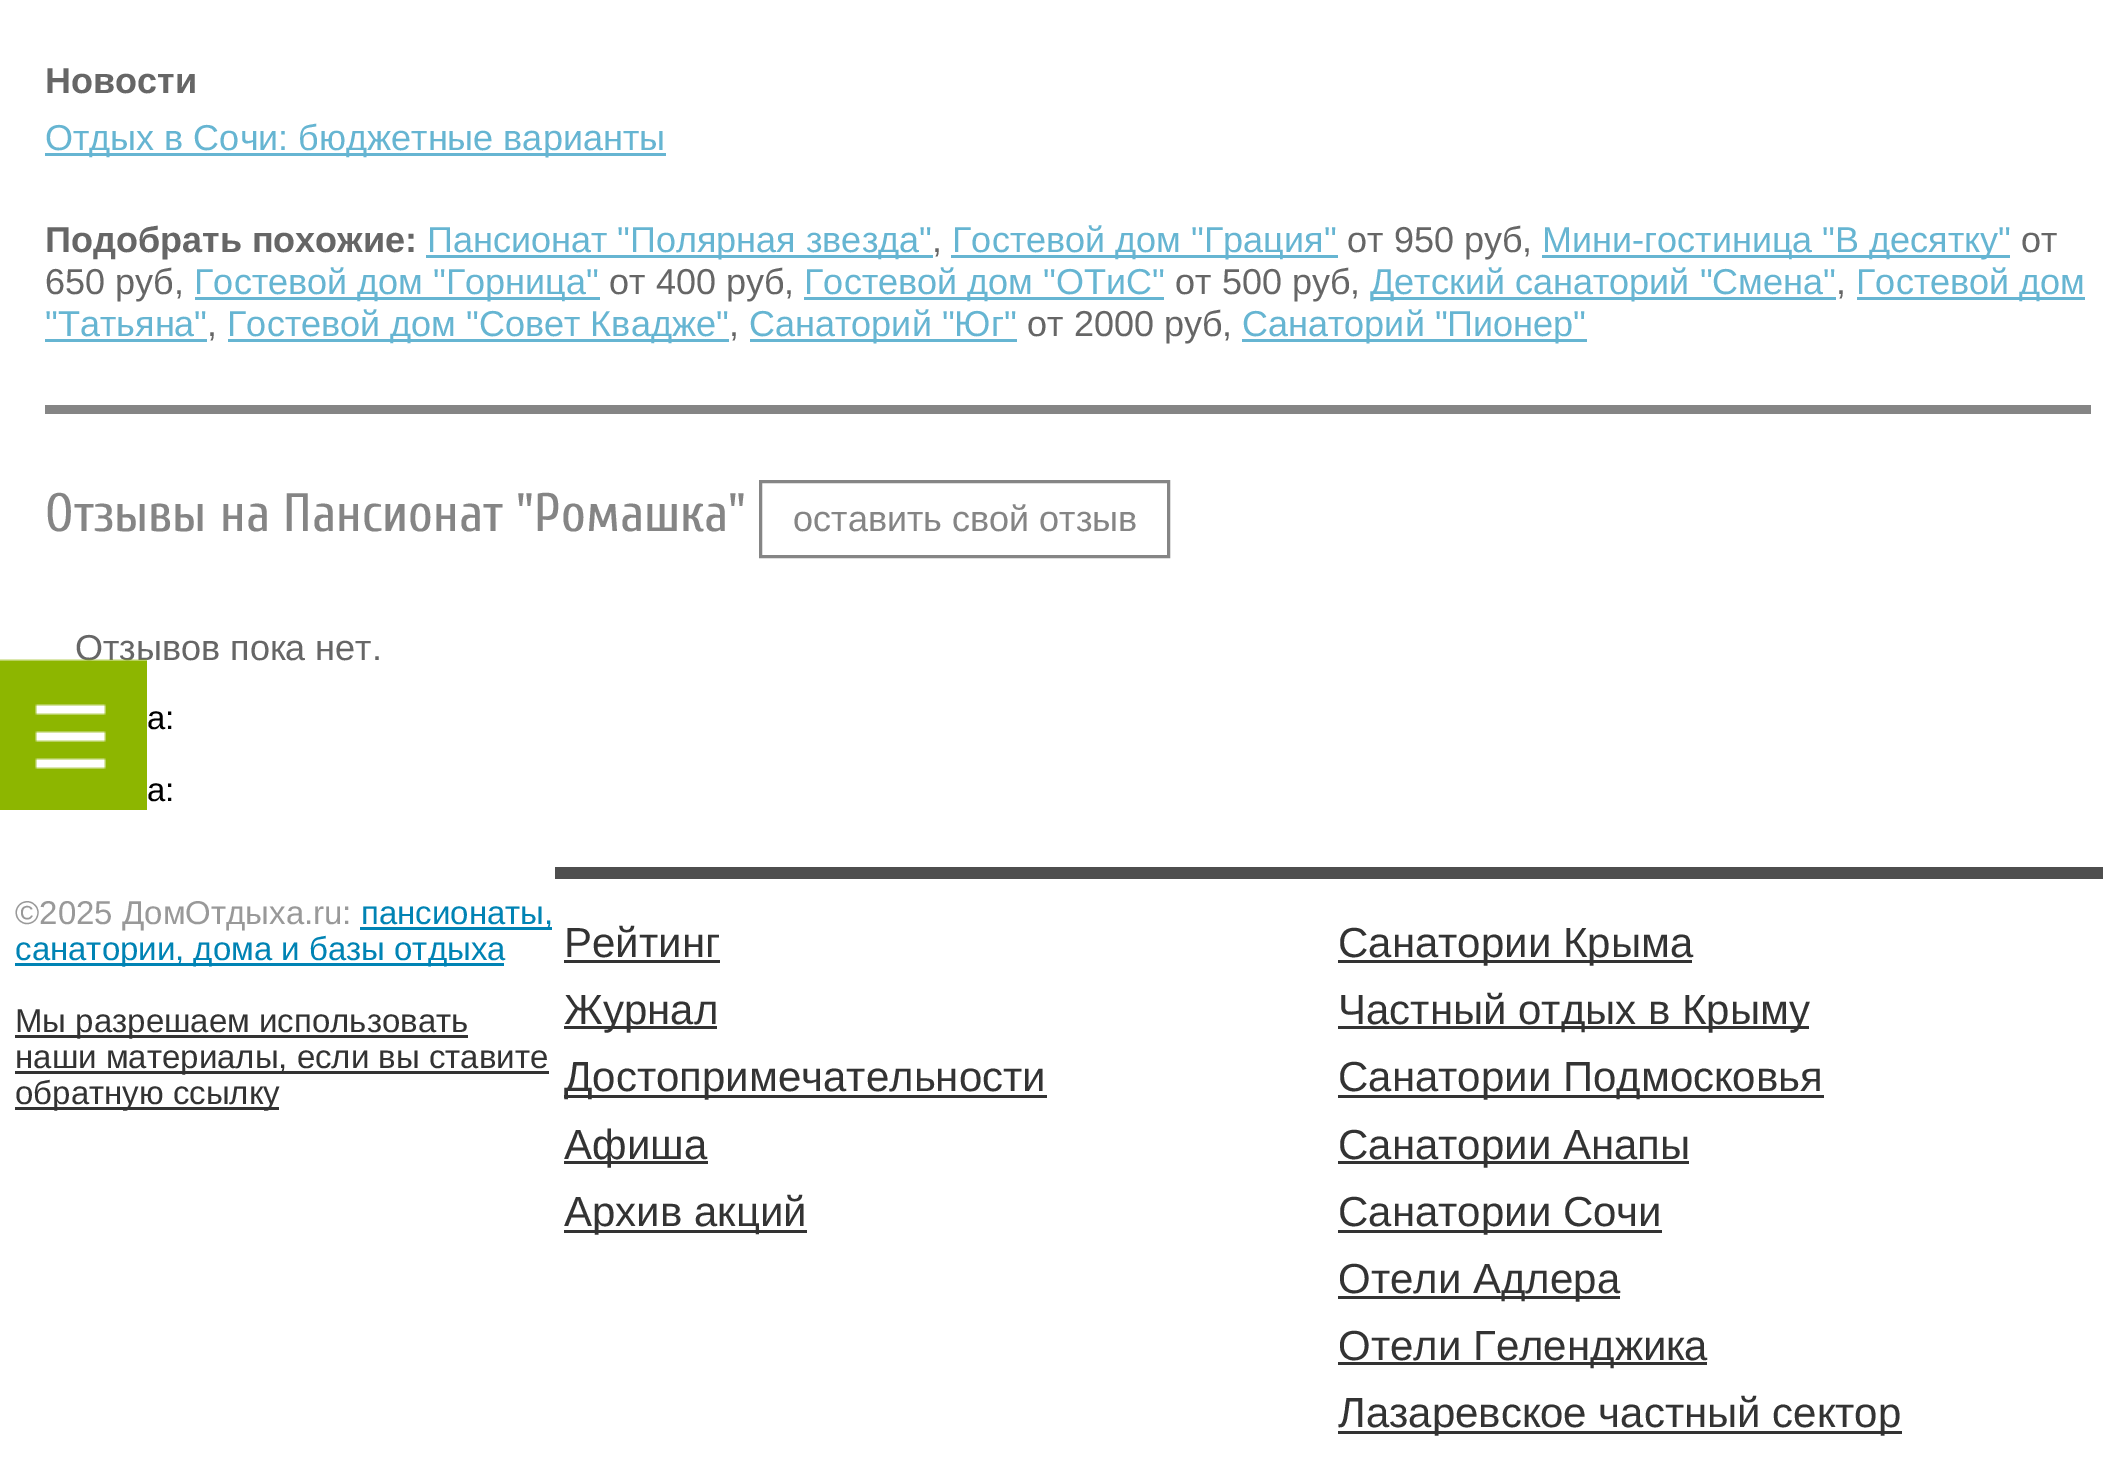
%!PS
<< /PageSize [2118 1465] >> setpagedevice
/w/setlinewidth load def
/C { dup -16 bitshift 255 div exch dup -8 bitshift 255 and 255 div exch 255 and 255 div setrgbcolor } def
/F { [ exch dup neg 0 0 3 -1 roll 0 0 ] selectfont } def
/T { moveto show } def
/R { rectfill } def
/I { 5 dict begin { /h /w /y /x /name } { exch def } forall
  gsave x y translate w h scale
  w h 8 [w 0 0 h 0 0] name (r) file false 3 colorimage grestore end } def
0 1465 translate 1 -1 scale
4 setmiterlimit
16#FFFFFF C
0 0 2118 1465 R
/LiberationSans-Bold 36 F
16#666666 C
(Новости) 45 93 T
16#66B5D2 C
45 153 621 3 R
/LiberationSans-Regular 36 F
(Отдых в Сочи: бюджетные варианты) 45 150 T
/LiberationSans-Bold 36 F
16#666666 C
(Подобрать похожие:) 45 252 T
16#66B5D2 C
426 255 507 3 R
/LiberationSans-Regular 36 F
(Пансионат "Полярная звезда") 427 252 T
16#666666 C
(,) 932 252 T
16#66B5D2 C
951 255 387 3 R
(Гостевой дом "Грация") 952 252 T
16#666666 C
(от 950 руб,) 1347 252 T
16#66B5D2 C
1542 255 468 3 R
(Мини-гостиница "В десятку") 1542 252 T
16#666666 C
(от) 2021 252 T
(650 руб,) 45 294 T
16#66B5D2 C
195 297 405 3 R
(Гостевой дом "Горница") 194 294 T
16#666666 C
(от 400 руб,) 609 294 T
16#66B5D2 C
804 297 360 3 R
(Гостевой дом "ОТиС") 804 294 T
16#666666 C
(от 500 руб,) 1175 294 T
16#66B5D2 C
1371 297 465 3 R
(Детский санаторий "Смена") 1370 294 T
16#666666 C
(,) 1836 294 T
16#66B5D2 C
1857 297 228 3 R
(Гостевой дом) 1856 294 T
("Татьяна") 45 336 T
45 339 162 3 R
16#666666 C
(,) 207 336 T
16#66B5D2 C
228 339 501 3 R
(Гостевой дом "Совет Квадже") 227 336 T
16#666666 C
(,) 729 336 T
16#66B5D2 C
750 339 267 3 R
(Санаторий "Юг") 749 336 T
16#666666 C
(от 2000 руб,) 1027 336 T
16#66B5D2 C
1242 339 345 3 R
(Санаторий "Пионер") 1242 336 T
16#858585 C
45 405 2046 9 R
/Cuprum-Regular 54 F
(Отзывы на Пансионат "Ромашка") 45 531 T
3 w
760.5 481.5 408 75 rectstroke
/LiberationSans-Regular 36 F
(оставить свой отзыв) 793 531 T
16#666666 C
(Отзывов пока нет.) 75 660 T
/LiberationSans-Regular 33 F
16#000000 C
(а:) 147 729 T
(а:) 147 801 T
16#999999 C
(©2025 ДомОтдыха.ru:) 15 924 T
16#0083B4 C
360 927 192 3 R
(пансионаты,) 361 924 T
15 963 489 3 R
(санатории, дома и базы отдыха) 15 960 T
16#333333 C
15 1035 453 3 R
(Мы разрешаем использовать) 15 1032 T
15 1071 534 3 R
(наши материалы, если вы ставите) 15 1068 T
15 1107 264 3 R
(обратную ссылку) 15 1104 T
16#4E4E4E C
555 867 1548 12 R
/LiberationSans-Regular 42 F
16#333333 C
(Рейтинг) 564 957 T
564 960 156 3 R
564 1026 153 3 R
(Журнал) 564 1024 T
564 1095 483 3 R
(Достопримечательности) 564 1091 T
564 1161 144 3 R
(Афиша) 564 1159 T
564 1230 243 3 R
(Архив акций) 564 1226 T
1338 960 354 3 R
(Санатории Крыма) 1338 957 T
1338 1026 471 3 R
(Частный отдых в Крыму) 1338 1024 T
1338 1095 486 3 R
(Санатории Подмосковья) 1338 1091 T
1338 1161 351 3 R
(Санатории Анапы) 1338 1159 T
1338 1230 324 3 R
(Санатории Сочи) 1338 1226 T
1338 1296 282 3 R
(Отели Адлера) 1338 1293 T
1338 1362 369 3 R
(Отели Геленджика) 1338 1360 T
1338 1431 564 3 R
(Лазаревское частный сектор) 1338 1427 T
(1.rgb) 0 659 147 151 I
showpage
